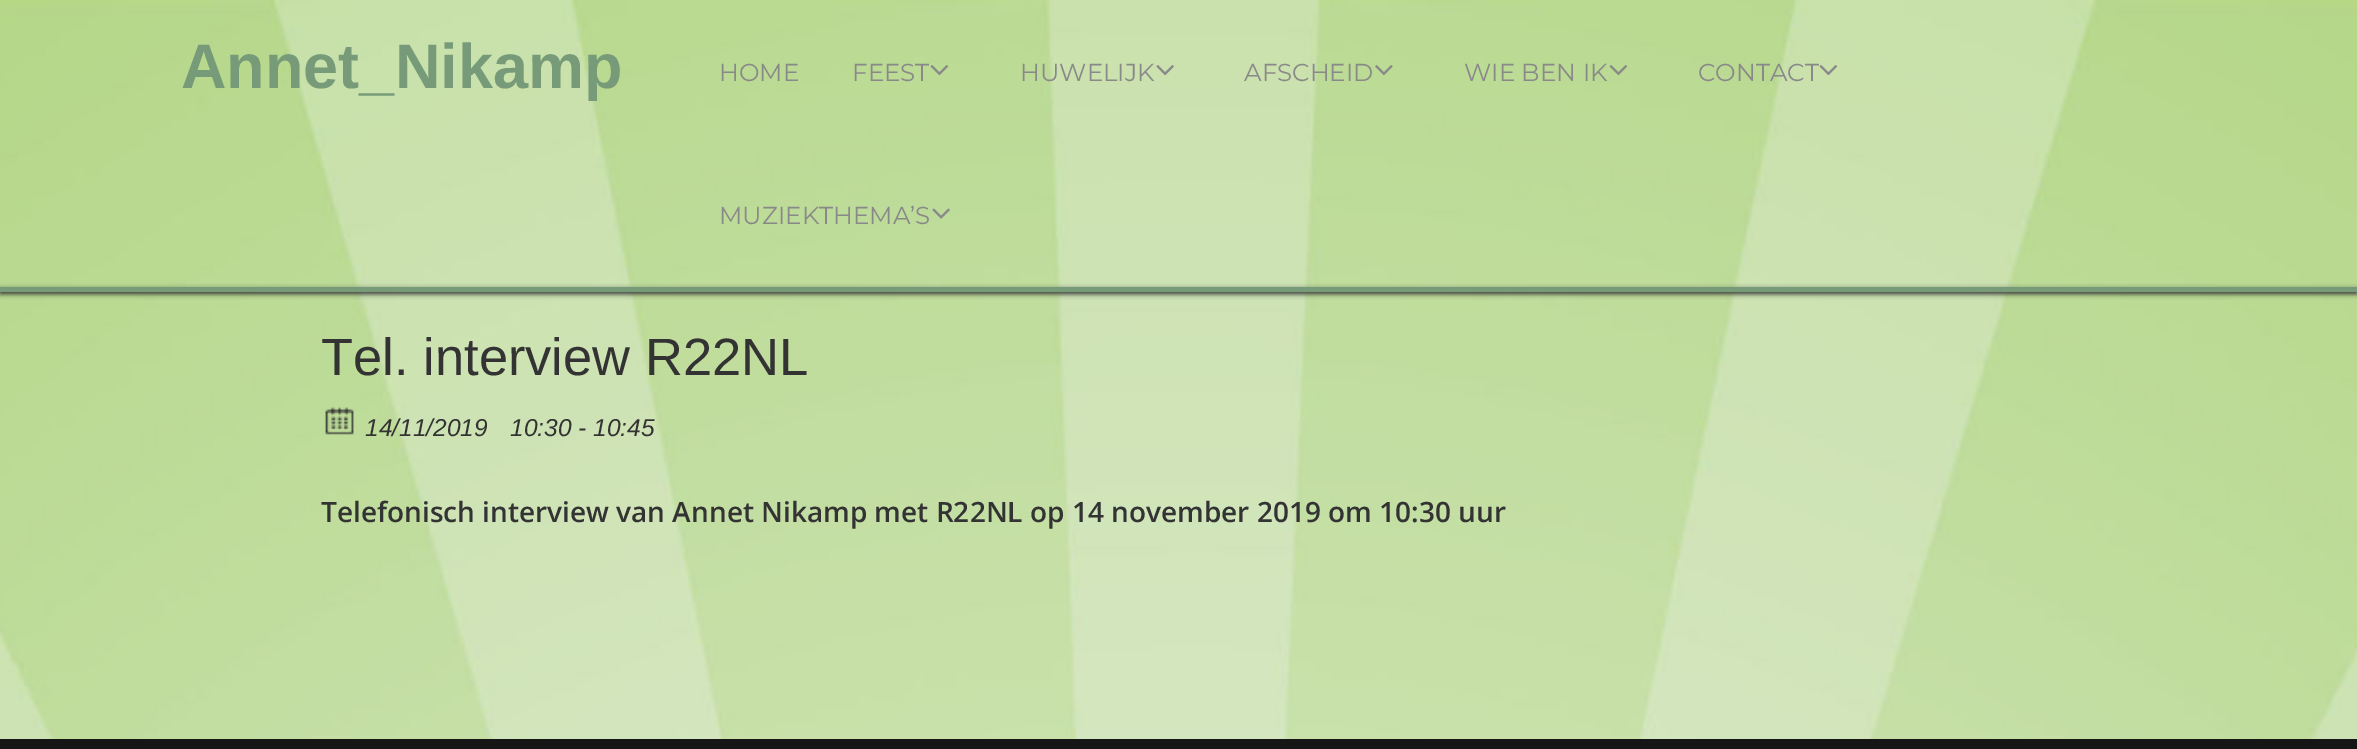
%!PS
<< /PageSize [2357 749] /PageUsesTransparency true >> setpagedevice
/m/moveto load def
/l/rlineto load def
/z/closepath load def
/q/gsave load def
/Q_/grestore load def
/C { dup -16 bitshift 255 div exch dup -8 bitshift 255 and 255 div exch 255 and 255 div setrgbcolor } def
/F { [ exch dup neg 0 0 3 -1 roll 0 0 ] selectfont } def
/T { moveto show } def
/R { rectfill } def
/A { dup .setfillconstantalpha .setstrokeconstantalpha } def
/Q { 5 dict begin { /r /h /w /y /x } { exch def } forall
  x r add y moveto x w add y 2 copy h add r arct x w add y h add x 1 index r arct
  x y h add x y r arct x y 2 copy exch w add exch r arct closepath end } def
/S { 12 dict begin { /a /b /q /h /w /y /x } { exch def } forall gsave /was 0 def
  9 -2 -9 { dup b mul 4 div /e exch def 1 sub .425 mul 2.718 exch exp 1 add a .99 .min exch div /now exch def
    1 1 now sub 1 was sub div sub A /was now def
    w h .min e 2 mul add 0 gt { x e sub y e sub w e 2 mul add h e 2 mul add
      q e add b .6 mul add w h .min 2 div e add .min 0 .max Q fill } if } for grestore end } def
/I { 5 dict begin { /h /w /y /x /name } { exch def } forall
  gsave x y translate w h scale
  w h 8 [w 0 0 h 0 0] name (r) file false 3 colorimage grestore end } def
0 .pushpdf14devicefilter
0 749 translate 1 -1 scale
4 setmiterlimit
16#FFFFFF C
0 0 2357 749 R
(1.rgb) 0 0 2357 739 I
16#779B79 C
0 287 2357 5 R
/LiberationSans-Bold 63 F
(Annet_Nikamp) 181 88 T
/Montserrat-Regular 24.5 F
16#898989 C
(HOME) 719 81 T
(FEEST) 852 81 T
(2.rgb) 930 65 19 11 I
(HUWELIJK) 1020 81 T
(3.rgb) 1156 65 18 11 I
(AFSCHEID) 1244 81 T
(4.rgb) 1375 65 18 11 I
(WIE BEN IK) 1464 81 T
(5.rgb) 1609 65 19 11 I
(CONTACT) 1698 81 T
(6.rgb) 1819 65 19 11 I
(MUZIEKTHEMA’S) 719 224 T
(7.rgb) 932 208 18 11 I
q
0 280 m 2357 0 l 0 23 l -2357 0 l z 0 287 m 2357 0 l 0 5 l -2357 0 l z eoclip newpath
16#333333 C
0 289 2357 5 0 2.5 1 S
Q_
/LiberationSans-Regular 52.5 F
16#333333 C
(Tel. interview R22NL) 321 375 T
(8.rgb) 325 407 29 28 I
/LiberationSans-Italic 24.5 F
(14/11/2019) 365 436 T
(10:30 - 10:45) 510 436 T
/OpenSans-SemiBold 28 F
(Telefonisch interview van Annet Nikamp met R22NL op 14 november 2019 om 10:30 uur) 321 522 T
16#161616 C
0 739 2357 10 R
.poppdf14devicefilter showpage
